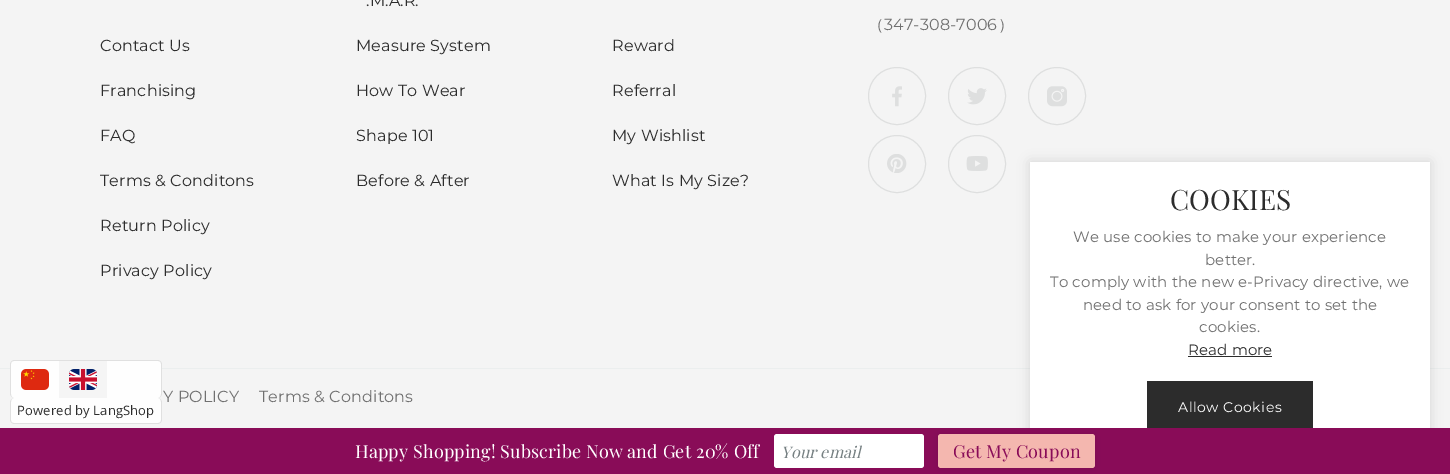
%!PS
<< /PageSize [1450 474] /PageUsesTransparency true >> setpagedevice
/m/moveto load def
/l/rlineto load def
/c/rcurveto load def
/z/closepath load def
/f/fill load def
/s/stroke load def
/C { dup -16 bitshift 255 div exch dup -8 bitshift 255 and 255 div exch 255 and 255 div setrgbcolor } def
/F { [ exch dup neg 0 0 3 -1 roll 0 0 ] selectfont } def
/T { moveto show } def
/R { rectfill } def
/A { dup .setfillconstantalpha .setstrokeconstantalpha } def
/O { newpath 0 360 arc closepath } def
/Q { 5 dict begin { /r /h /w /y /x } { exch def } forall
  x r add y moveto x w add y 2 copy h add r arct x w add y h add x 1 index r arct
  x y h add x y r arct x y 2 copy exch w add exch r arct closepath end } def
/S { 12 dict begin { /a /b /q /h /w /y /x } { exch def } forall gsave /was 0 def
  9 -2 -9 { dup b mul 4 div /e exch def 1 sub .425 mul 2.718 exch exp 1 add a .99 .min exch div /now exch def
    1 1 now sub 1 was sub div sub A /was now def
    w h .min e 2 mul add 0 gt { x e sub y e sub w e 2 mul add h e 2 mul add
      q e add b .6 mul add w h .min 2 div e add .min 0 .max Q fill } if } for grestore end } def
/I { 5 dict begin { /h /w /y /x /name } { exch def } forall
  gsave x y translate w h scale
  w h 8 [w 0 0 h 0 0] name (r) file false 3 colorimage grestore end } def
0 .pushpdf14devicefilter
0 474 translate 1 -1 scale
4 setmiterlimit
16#F4F4F4 C
0 0 1450 474 R
16#EBEEEE C
0 368 1450 1 R
0.95 A
16#FFFFFF C
10 360 152 38 4 Q f
1 A
16#E0E0E0 C
14 360 m 144 0 l 2 0 4 2 4 4 c 0 30 l 0 2 -2 4 -4 4 c -144 0 l -2 0 -4 -2 -4 -4 c 0 -30 l 0 -2 2 -4 4 -4 c z 14 361 m 144 0 l 2 0 3 1 3 3 c 0 30 l 0 2 -1 4 -3 4 c -144 0 l -2 0 -3 -2 -3 -4 c 0 -30 l 0 -2 1 -3 3 -3 c z eofill
(1.rgb) 21 369 28 21 I
16#F5F5F5 C
59 361 48 37 R
(2.rgb) 69 369 28 21 I
0.95 A
16#FFFFFF C
10 398 152 26 4 Q f
1 A
16#E0E0E0 C
14 398 m 144 0 l 2 0 4 2 4 4 c 0 18 l 0 2 -2 4 -4 4 c -144 0 l -2 0 -4 -2 -4 -4 c 0 -18 l 0 -2 2 -4 4 -4 c z 14 398 m 144 0 l 2 0 3 2 3 4 c 0 18 l 0 2 -1 3 -3 3 c -144 0 l -2 0 -3 -1 -3 -3 c 0 -18 l 0 -2 1 -4 3 -4 c z eofill
/OpenSans-Regular 13 F
16#2C2C2C C
17 415 m .15 0 (Powered by LangShop) ashow
/Montserrat-Regular 16 F
366 6 m .15 0 (.M.A.R.) ashow
356 51 m .15 0 (Measure System) ashow
356 96 m .15 0 (How To Wear) ashow
356 141 m .15 0 (Shape 101) ashow
356 186 m .15 0 (Before & After) ashow
/WenQuanYiZenHei-Medium 16 F
16#707070 C
868 30 m .15 0 (（) ashow
/Montserrat-Regular 16 F
884 30 m .15 0 (347-308-7006) ashow
/WenQuanYiZenHei-Medium 16 F
998 30 m .15 0 (）) ashow
16#DEDFDF C
897 96 28.5 O s
(3.rgb) 892 86 10 21 I
977 96 28.5 O s
(4.rgb) 967 88 20 17 I
1057 96 28.5 O s
(5.rgb) 1047 86 20 21 I
897 164 28.5 O s
(6.rgb) 887 154 20 19 I
977 164 28.5 O s
(7.rgb) 966 156 22 15 I
/Montserrat-Regular 16 F
16#2C2C2C C
100 51 m .15 0 (Contact Us) ashow
100 96 m .15 0 (Franchising) ashow
100 141 m .15 0 (FAQ) ashow
100 186 m .15 0 (Terms & Conditons) ashow
100 231 m .15 0 (Return Policy) ashow
100 276 m .15 0 (Privacy Policy) ashow
612 51 m .15 0 (Reward) ashow
612 96 m .15 0 (Referral) ashow
612 141 m .15 0 (My Wishlist) ashow
612 186 m .15 0 (What Is My Size?) ashow
16#707070 C
163 402 m .15 0 (Y POLICY) ashow
259 402 m .15 0 (Terms & Conditons) ashow
16#000000 C
1030 162 400 292 0 6 .12 S
16#FFFFFF C
1030 162 400 266 R
/PlayfairDisplay-Regular 28 F
16#2C2C2C C
(COOKIES) 1170 210 T
/Montserrat-Regular 15 F
16#707070 C
1073 242 m .15 0 (We use cookies to make your experience) ashow
1205 265 m .15 0 (better.) ashow
1050 287 m .15 0 (To comply with the new e-Privacy directive, we) ashow
1083 310 m .15 0 (need to ask for your consent to set the) ashow
1199 332 m .15 0 (cookies.) ashow
16#2C2C2C C
1188 355 m .15 0 (Read more) ashow
1188 356 84 1 R
1147 381 166 47 R
/Montserrat-Regular 14 F
16#FFFFFF C
1178 412 m .5 0 (Allow Cookies) ashow
16#890C58 C
0 428 1450 46 R
/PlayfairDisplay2-Regular 18 F
16#FFFFFF C
355 458 m .15 0 (Happy Shopping! Subscribe Now and Get 20% Off) ashow
774 434 150 34 3 Q f
/PlayfairDisplay-Italic 16 F
16#768082 C
781 458 m .15 0 (Your email) ashow
16#000000 C
938 434 157 34 3 2.5 .1 S
16#F4B7AF C
938 434 157 34 3 Q f
/PlayfairDisplay2-Regular 18 F
16#890C58 C
953 458 m .15 0 (Get My Coupon) ashow
.poppdf14devicefilter showpage
